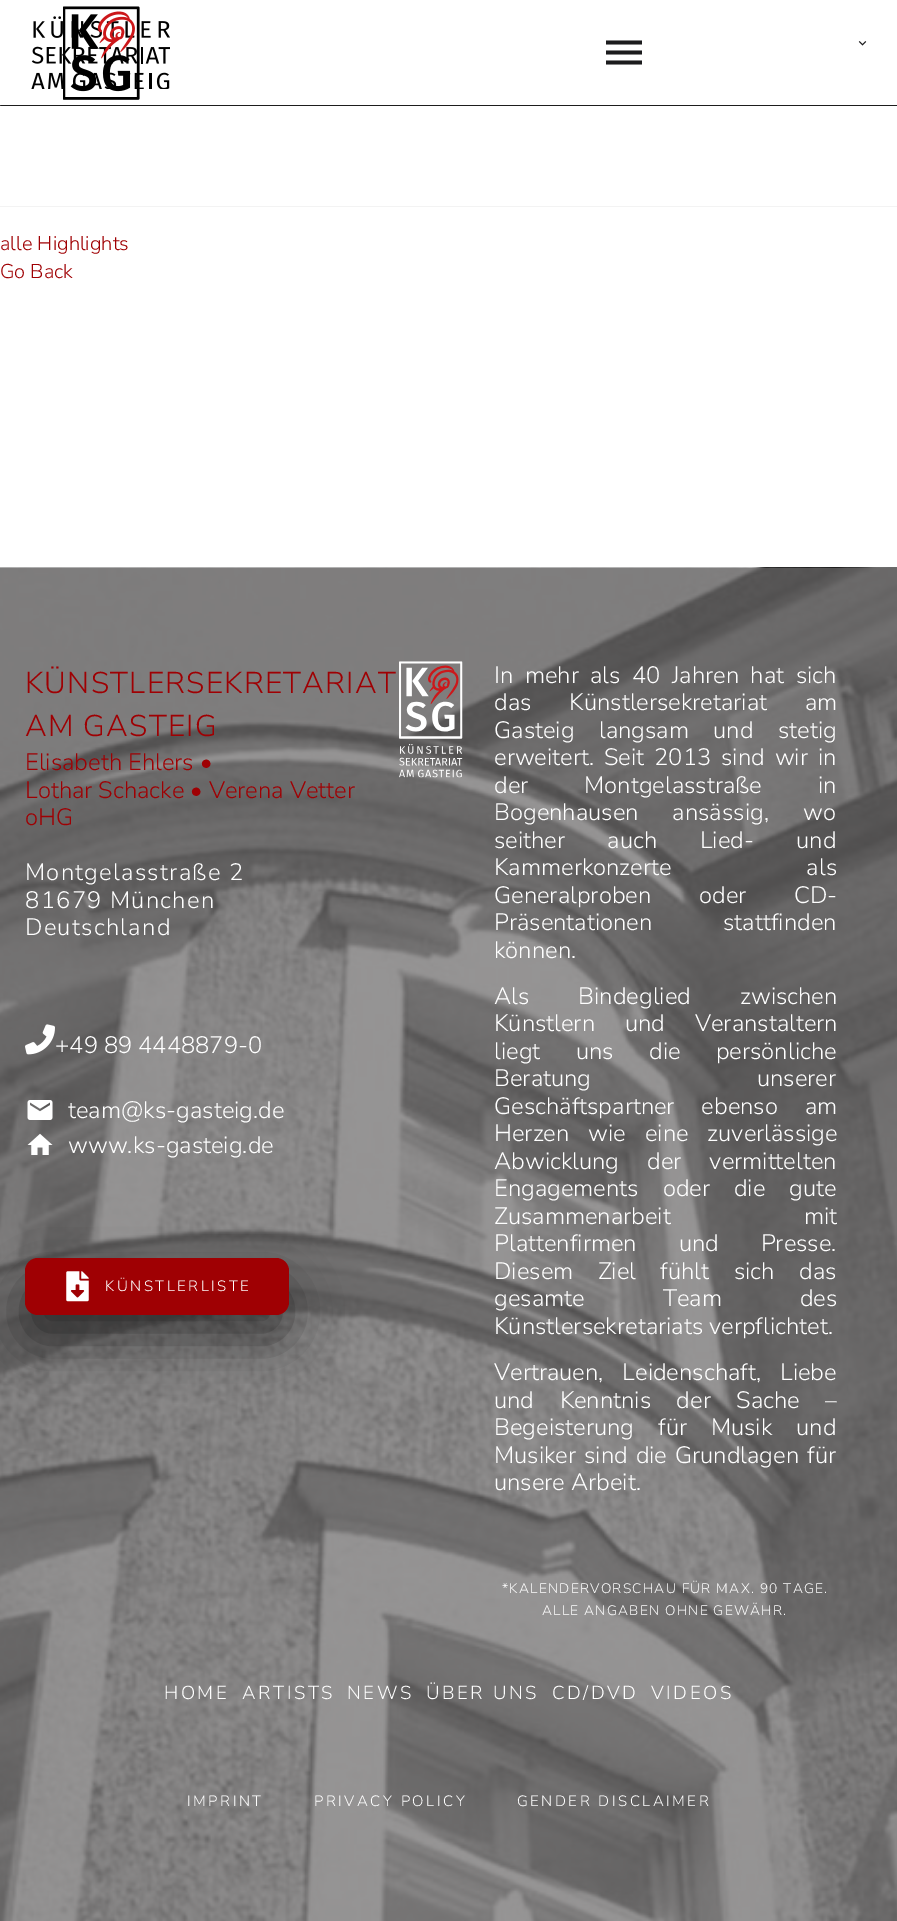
%!PS
<< /PageSize [897 1921] /PageUsesTransparency true >> setpagedevice
/m/moveto load def
/l/rlineto load def
/c/rcurveto load def
/z/closepath load def
/f/fill load def
/q/gsave load def
/Q_/grestore load def
/C { dup -16 bitshift 255 div exch dup -8 bitshift 255 and 255 div exch 255 and 255 div setrgbcolor } def
/F { [ exch dup neg 0 0 3 -1 roll 0 0 ] selectfont } def
/T { moveto show } def
/R { rectfill } def
/A { dup .setfillconstantalpha .setstrokeconstantalpha } def
/Q { 5 dict begin { /r /h /w /y /x } { exch def } forall
  x r add y moveto x w add y 2 copy h add r arct x w add y h add x 1 index r arct
  x y h add x y r arct x y 2 copy exch w add exch r arct closepath end } def
/S { 12 dict begin { /a /b /q /h /w /y /x } { exch def } forall gsave /was 0 def
  9 -2 -9 { dup b mul 4 div /e exch def 1 sub .425 mul 2.718 exch exp 1 add a .99 .min exch div /now exch def
    1 1 now sub 1 was sub div sub A /was now def
    w h .min e 2 mul add 0 gt { x e sub y e sub w e 2 mul add h e 2 mul add
      q e add b .6 mul add w h .min 2 div e add .min 0 .max Q fill } if } for grestore end } def
/I { 5 dict begin { /h /w /y /x /name } { exch def } forall
  gsave x y translate w h scale
  w h 8 [w 0 0 h 0 0] name (r) file false 3 colorimage grestore end } def
0 .pushpdf14devicefilter
0 1921 translate 1 -1 scale
4 setmiterlimit
16#FFFFFF C
0 0 897 1921 R
q 0 105 m 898 0 l 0 .5 -.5 1 -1 1 c -896 0 l -.5 0 -1 -.5 -1 -1 c z clip newpath
<< /ShadingType 2 /ColorSpace /DeviceRGB /Coords [449 105 449 210] /Extend [true true] /Function << /FunctionType 2 /Domain [0 1] /C0 [.22 .22 .22] /C1 [.949 .949 .949] /N 1 >> >> shfill Q_
16#1D1D1D C
1 105 896 1 R
(2.rgb) 31 16 139 73 I
(1.rgb) 63 6 77 94 I
16#1B1B1D C
606 64.5 m 0 -4 l 36 0 l 0 4 l z 606 54.5 m 0 -4 l 36 0 l 0 4 l z 606 40.5 m 36 0 l 0 4 l -36 0 l z f
(3.rgb) 858 41 9 5 I
16#F3F3F3 C
0 206 897 1 R
/NunitoSans-Light 20 F
16#9F0003 C
(alle Highlights) 0 250 T
(Go Back) 0 278 T
(4.rgb) 0 567 897 1354 I
/NunitoSans-Light 30 F
25 693 m 1.25 0 (KÜNSTLERSEKRETARIAT) ashow
25 736 m 1.25 0 (AM GASTEIG) ashow
/NunitoSans-Light 23.75 F
(Elisabeth Ehlers •) 25 770 T
(Lothar Schacke • Verena Vetter) 25 798 T
(oHG) 25 825 T
16#FFFFFF C
25 880 m 1.25 0 (Montgelasstraße 2) ashow
25 908 m 1.25 0 (81679 München) ashow
25 935 m 1.25 0 (Deutschland) ashow
(5.rgb) 25 1024 30 31 I
(+49 89 4448879-0) 55 1053 T
(6.rgb) 27 1100 26 20 I
(team@ks-gasteig.de) 68 1118 T
(7.rgb) 27 1133 26 22 I
(www.ks-gasteig.de) 68 1153 T
16#000000 C
25 1283 264 57 13 25 .5 S
16#9F0003 C
25 1258 264 57 13 Q f
(8.rgb) 66 1271 23 31 I
/NunitoSans-Light 15 F
16#FFFFFF C
105 1291 m 2.5 0 (KÜNSTLERLISTE) ashow
(9.rgb) 399 661 64 117 I
/NunitoSans-Light 23.75 F
494 683 m 5.5 0 32 (In mehr als 40 Jahren hat sich) widthshow
494 710 m 32 0 32 (das Künstlersekretariat am) widthshow
494 738 m 18.5 0 32 (Gasteig langsam und stetig) widthshow
494 765 m 4 0 32 (erweitert. Seit 2013 sind wir in) widthshow
494 793 m 50 0 32 (der Montgelasstraße in) widthshow
494 820 m 28 0 32 (Bogenhausen ansässig, wo) widthshow
494 848 m 36.5 0 32 (seither auch Lied- und) widthshow
494 875 m 129 0 32 (Kammerkonzerte als) widthshow
494 903 m 42 0 32 (Generalproben oder CD-) widthshow
494 930 m 65 0 32 (Präsentationen stattfinden) widthshow
(können.) 494 958 T
494 1004 m 43 0 32 (Als Bindeglied zwischen) widthshow
494 1031 m 24 0 32 (Künstlern und Veranstaltern) widthshow
494 1059 m 29.5 0 32 (liegt uns die persönliche) widthshow
494 1086 m 160 0 32 (Beratung unserer) widthshow
494 1114 m 21 0 32 (Geschäftspartner ebenso am) widthshow
494 1141 m 13 0 32 (Herzen wie eine zuverlässige) widthshow
494 1169 m 22 0 32 (Abwicklung der vermittelten) widthshow
494 1196 m 18 0 32 (Engagements oder die gute) widthshow
494 1224 m 127 0 32 (Zusammenarbeit mit) widthshow
494 1251 m 36 0 32 (Plattenfirmen und Presse.) widthshow
494 1279 m 18.5 0 32 (Diesem Ziel fühlt sich das) widthshow
494 1306 m 72 0 32 (gesamte Team des) widthshow
(Künstlersekretariats verpflichtet.) 494 1334 T
494 1380 m 13 0 32 (Vertrauen, Leidenschaft, Liebe) widthshow
494 1408 m 19.5 0 32 (und Kenntnis der Sache –) widthshow
494 1435 m 18 0 32 (Begeisterung für Musik und) widthshow
494 1463 m 2 0 32 (Musiker sind die Grundlagen für) widthshow
(unsere Arbeit.) 494 1490 T
/NunitoSans-Light 13.75 F
502 1593 m 1.25 0 (*KALENDERVORSCHAU FÜR MAX. 90 TAGE.) ashow
542 1615 m 1.25 0 (ALLE ANGABEN OHNE GEWÄHR.) ashow
/NunitoSans-Light 18.75 F
164 1699 m 2.5 0 (HOME) ashow
242 1699 m 2.5 0 (ARTISTS) ashow
347 1699 m 2.5 0 (NEWS) ashow
426 1699 m 2.5 0 (ÜBER UNS) ashow
552 1699 m 2.5 0 (CD/DVD) ashow
651 1699 m 2.5 0 (VIDEOS) ashow
/NunitoSans-Light 15 F
187 1806 m 2.5 0 (IMPRINT) ashow
314 1806 m 2.5 0 (PRIVACY POLICY) ashow
517 1806 m 2.5 0 (GENDER DISCLAIMER) ashow
.poppdf14devicefilter showpage
